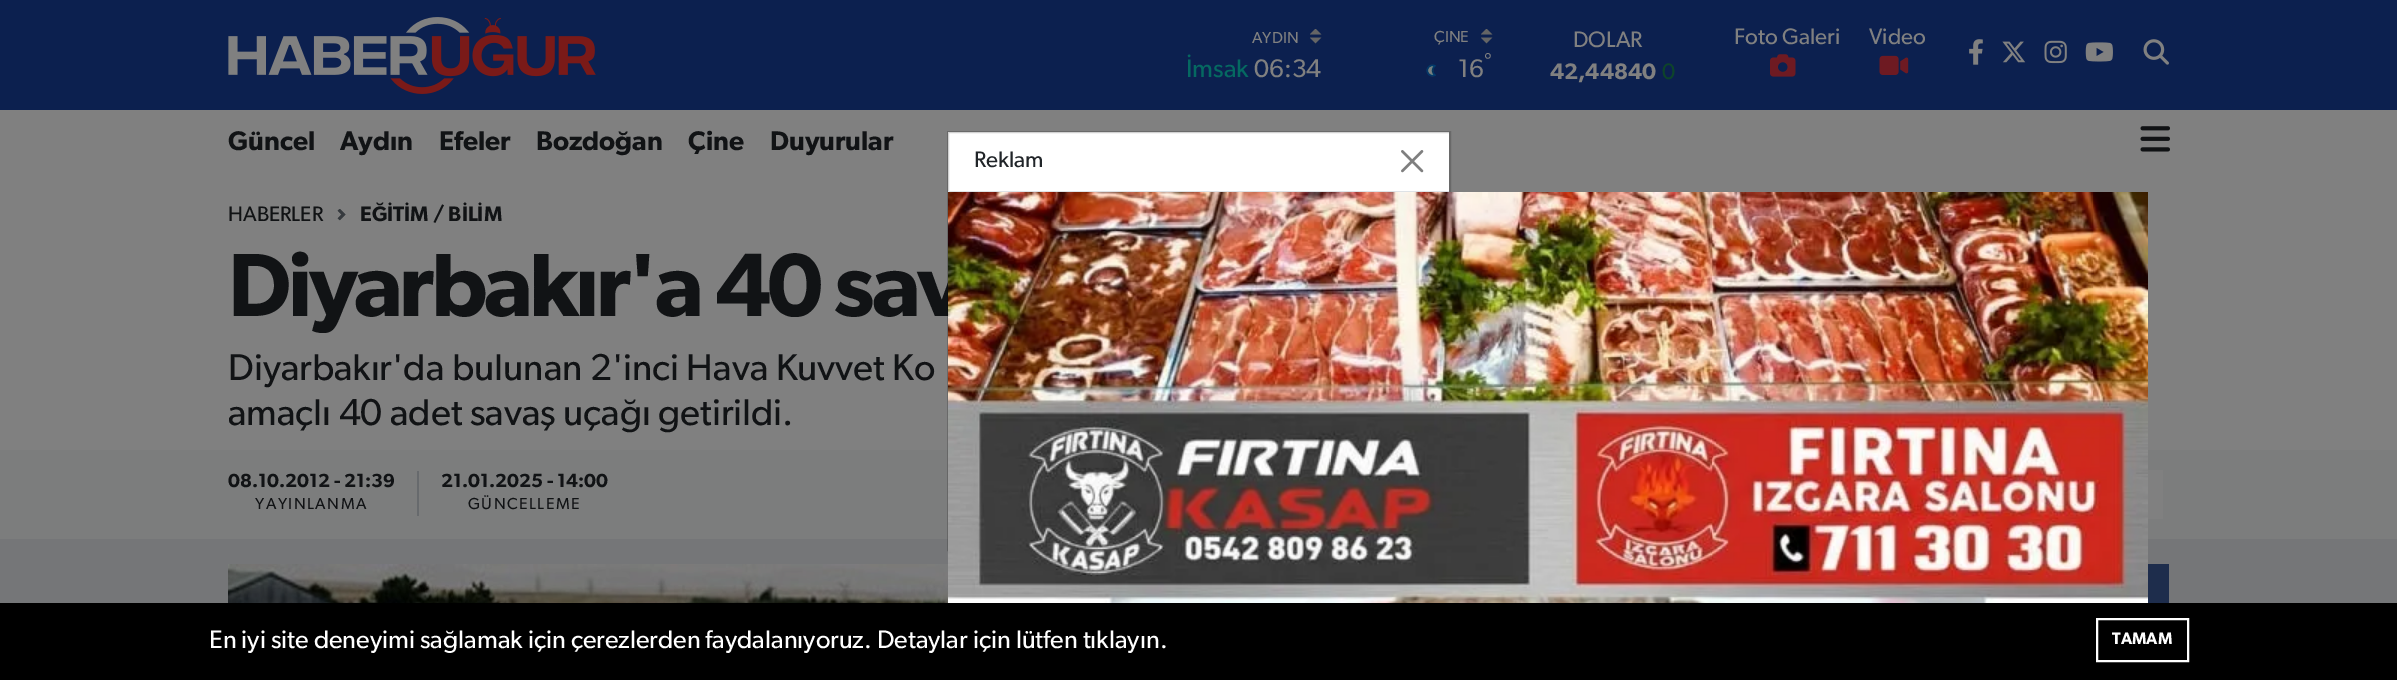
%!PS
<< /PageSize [2397 680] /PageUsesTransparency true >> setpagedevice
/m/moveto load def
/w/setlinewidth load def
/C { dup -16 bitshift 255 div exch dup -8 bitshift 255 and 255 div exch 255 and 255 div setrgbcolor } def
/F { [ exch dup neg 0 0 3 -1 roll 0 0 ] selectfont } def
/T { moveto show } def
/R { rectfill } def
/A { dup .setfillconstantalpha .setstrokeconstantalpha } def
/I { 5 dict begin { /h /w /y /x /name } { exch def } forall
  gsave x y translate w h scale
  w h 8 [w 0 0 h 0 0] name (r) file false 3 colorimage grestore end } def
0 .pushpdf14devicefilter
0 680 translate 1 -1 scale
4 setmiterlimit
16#757678 C
0 0 2397 680 R
16#0C204F C
0 0 2397 110 R
(1.rgb) 228 17 368 77 I
(2.rgb) 1310 29 12 15 I
/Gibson-Regular 16 F
16#808080 C
(AYDIN) 1252 43 T
/Gibson-Regular 25.5 F
16#056961 C
(İmsak) 1186 77 T
16#808080 C
(06:34) 1254 77 T
(2.rgb) 1481 29 12 15 I
/Gibson-Regular 16 F
(ÇINE) 1434 42 T
/Gibson-Regular 19.1 F
(°) 1484 67 T
(3.rgb) 1426 64 10 13 I
/Gibson-Regular 25.5 F
(16) 1458 77 T
/Gibson-Regular 22.5 F
(DOLAR) 1573 47 T
/Gibson-SemiBold 22.5 F
(42,44840) 1550 79 T
/Gibson-Regular 22.5 F
16#0D442A C
(0) 1662 79 T
16#808080 C
(Foto Galeri) 1734 44 T
(4.rgb) 1770 54 26 23 I
(Video) 1869 44 T
(5.rgb) 1879 55 30 20 I
(6.rgb) 1969 39 14 26 I
(7.rgb) 2002 41 24 22 I
(8.rgb) 2044 40 23 24 I
(9.rgb) 2085 42 28 20 I
(10.rgb) 2143 39 26 26 I
0 110 2397 340 R
/Gibson-SemiBold 27 F
16#111315 C
(Güncel) 228 150 T
(Aydın) 340 150 T
(Efeler) 439 150 T
(Bozdoğan) 536 150 T
(Çine) 688 150 T
(Duyurular) 770 150 T
(11.rgb) 2140 126 30 26 I
16#FFFFFF C
948 132 501 59 R
/Gibson-SemiBold 90 F
16#111315 C
228 316 m -3.5 0 (Diyarbakır'a 40 sav) ashow
16#7C7D7D C
0 450 2397 89 R
0.18 A
16#000000 C
2 w
948 132 502 418 rectstroke
1 A
16#DEE2E6 C
948 191 501 1 R
/Gibson-Regular 22.5 F
16#212529 C
(Reklam) 974 167 T
(12.rgb) 1401 150 23 23 I
(13.rgb) 948 192 1200 411 I
/Gibson-Regular 21 F
16#111315 C
(HABERLER) 228 221 T
(14.rgb) 337 209 9 12 I
/Gibson-SemiBold 21 F
(EĞİTİM / BİLİM) 360 221 T
/Gibson-Regular 37.5 F
(Diyarbakır'da bulunan 2'inci Hava Kuvvet Ko) 228 380 T
(amaçlı 40 adet savaş uçağı getirildi.) 228 425 T
16#676A6D C
417 471 2 45 R
/Gibson-SemiBold 19.1 F
16#111315 C
(08.10.2012 - 21:39) 228 487 T
/Gibson-Regular 16 F
255 509 m 1.5 0 (YAYINLANMA) ashow
/Gibson-SemiBold 19.1 F
(21.01.2025 - 14:00) 441 487 T
/Gibson-Regular 16 F
468 509 m 1.5 0 (GÜNCELLEME) ashow
16#808080 C
2148 470 15 49 R
(15.rgb) 228 564 720 39 I
16#1E2D4C C
2148 564 21 39 R
16#000000 C
0 603 2397 77 R
/Gibson-Regular 25.5 F
16#FFFFFF C
(En iyi site deneyimi sağlamak için çerezlerden faydalanıyoruz. Detaylar için lütfen tıklayın.) 209 648 T
2097 619 91 42 rectstroke
/Gibson-SemiBold 16.5 F
(TAMAM) 2112 644 T
.poppdf14devicefilter showpage
